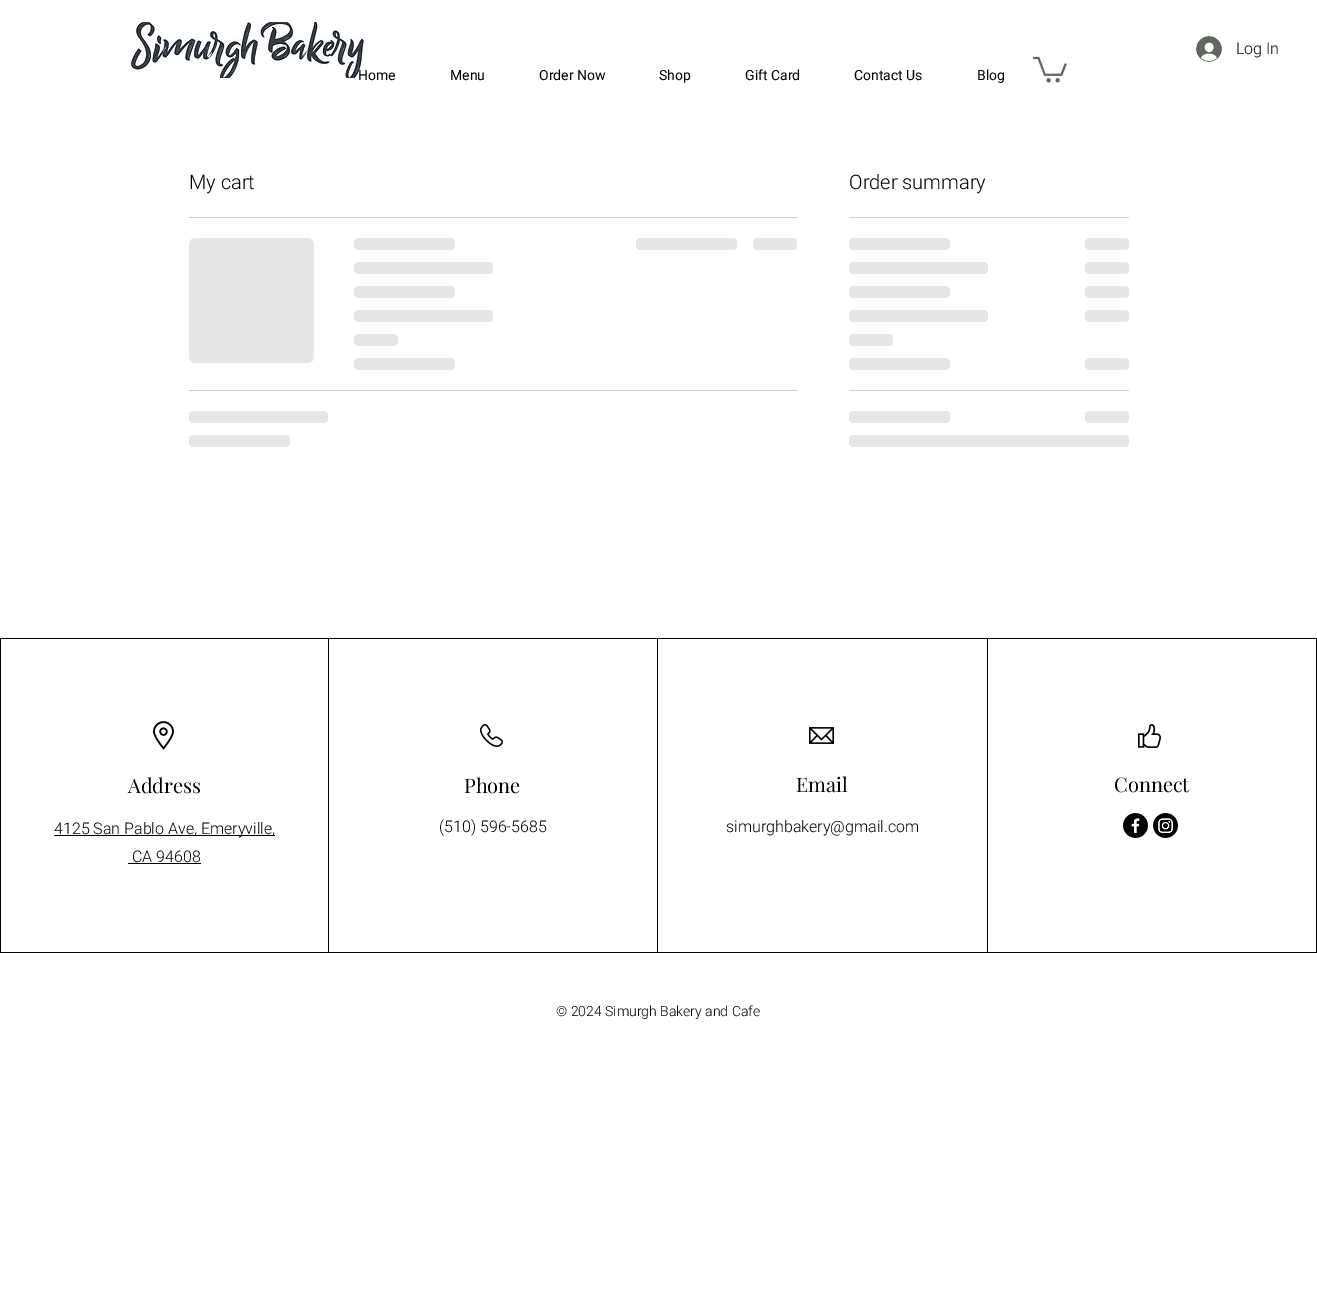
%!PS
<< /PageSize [1317 1298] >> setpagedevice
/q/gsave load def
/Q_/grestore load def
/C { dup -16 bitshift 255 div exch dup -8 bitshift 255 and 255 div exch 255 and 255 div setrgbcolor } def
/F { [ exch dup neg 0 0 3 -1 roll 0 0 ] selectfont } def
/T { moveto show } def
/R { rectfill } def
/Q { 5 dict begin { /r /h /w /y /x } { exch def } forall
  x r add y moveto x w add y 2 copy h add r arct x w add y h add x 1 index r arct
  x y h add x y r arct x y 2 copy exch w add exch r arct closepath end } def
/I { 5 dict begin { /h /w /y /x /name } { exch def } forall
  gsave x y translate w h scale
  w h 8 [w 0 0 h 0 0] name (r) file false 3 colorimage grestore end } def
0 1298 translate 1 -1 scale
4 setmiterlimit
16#FFFFFF C
0 0 1317 1298 R
(1.rgb) 131 22 233 56 I
(2.rgb) 1196 36 26 26 I
/Heebo-Light 16 F
16#000000 C
(Log In) 1236 54 T
/Heebo-Regular 14 F
(Home) 358 80 T
(Menu) 450 80 T
(Order Now) 539 80 T
(Shop) 659 80 T
(Gift Card) 745 80 T
(Contact Us) 854 80 T
(Blog) 977 80 T
(3.rgb) 1033 56 34 27 I
16#CCCCCC C
189 217 608 1 R
/Heebo-Light 20 F
16#000000 C
(My cart) 189 189 T
q 189 238 125 125 8 Q clip newpath
<< /ShadingType 2 /ColorSpace /DeviceRGB /Coords [189 301 689 301] /Extend [true true] /Function << /FunctionType 3 /Domain [0 1] /Functions [<< /FunctionType 2 /Domain [0 1] /C0 [.902 .902 .902] /C1 [.902 .902 .902] /N 1 >> << /FunctionType 2 /Domain [0 1] /C0 [.902 .902 .902] /C1 [.8 .8 .8] /N 1 >> << /FunctionType 2 /Domain [0 1] /C0 [.8 .8 .8] /C1 [.902 .902 .902] /N 1 >> << /FunctionType 2 /Domain [0 1] /C0 [.902 .902 .902] /C1 [.902 .902 .902] /N 1 >>] /Bounds [.25 .37 .63] /Encode [0 1 0 1 0 1 0 1] >> >> shfill Q_
q 354 238 101 12 6 Q clip newpath
<< /ShadingType 2 /ColorSpace /DeviceRGB /Coords [354 244 758 244] /Extend [true true] /Function << /FunctionType 3 /Domain [0 1] /Functions [<< /FunctionType 2 /Domain [0 1] /C0 [.902 .902 .902] /C1 [.902 .902 .902] /N 1 >> << /FunctionType 2 /Domain [0 1] /C0 [.902 .902 .902] /C1 [.8 .8 .8] /N 1 >> << /FunctionType 2 /Domain [0 1] /C0 [.8 .8 .8] /C1 [.902 .902 .902] /N 1 >> << /FunctionType 2 /Domain [0 1] /C0 [.902 .902 .902] /C1 [.902 .902 .902] /N 1 >>] /Bounds [.25 .37 .63] /Encode [0 1 0 1 0 1 0 1] >> >> shfill Q_
q 354 262 139 12 6 Q clip newpath
<< /ShadingType 2 /ColorSpace /DeviceRGB /Coords [354 268 910 268] /Extend [true true] /Function << /FunctionType 3 /Domain [0 1] /Functions [<< /FunctionType 2 /Domain [0 1] /C0 [.902 .902 .902] /C1 [.902 .902 .902] /N 1 >> << /FunctionType 2 /Domain [0 1] /C0 [.902 .902 .902] /C1 [.8 .8 .8] /N 1 >> << /FunctionType 2 /Domain [0 1] /C0 [.8 .8 .8] /C1 [.902 .902 .902] /N 1 >> << /FunctionType 2 /Domain [0 1] /C0 [.902 .902 .902] /C1 [.902 .902 .902] /N 1 >>] /Bounds [.25 .37 .63] /Encode [0 1 0 1 0 1 0 1] >> >> shfill Q_
q 354 286 101 12 6 Q clip newpath
<< /ShadingType 2 /ColorSpace /DeviceRGB /Coords [354 292 758 292] /Extend [true true] /Function << /FunctionType 3 /Domain [0 1] /Functions [<< /FunctionType 2 /Domain [0 1] /C0 [.902 .902 .902] /C1 [.902 .902 .902] /N 1 >> << /FunctionType 2 /Domain [0 1] /C0 [.902 .902 .902] /C1 [.8 .8 .8] /N 1 >> << /FunctionType 2 /Domain [0 1] /C0 [.8 .8 .8] /C1 [.902 .902 .902] /N 1 >> << /FunctionType 2 /Domain [0 1] /C0 [.902 .902 .902] /C1 [.902 .902 .902] /N 1 >>] /Bounds [.25 .37 .63] /Encode [0 1 0 1 0 1 0 1] >> >> shfill Q_
q 354 310 139 12 6 Q clip newpath
<< /ShadingType 2 /ColorSpace /DeviceRGB /Coords [354 316 910 316] /Extend [true true] /Function << /FunctionType 3 /Domain [0 1] /Functions [<< /FunctionType 2 /Domain [0 1] /C0 [.902 .902 .902] /C1 [.902 .902 .902] /N 1 >> << /FunctionType 2 /Domain [0 1] /C0 [.902 .902 .902] /C1 [.8 .8 .8] /N 1 >> << /FunctionType 2 /Domain [0 1] /C0 [.8 .8 .8] /C1 [.902 .902 .902] /N 1 >> << /FunctionType 2 /Domain [0 1] /C0 [.902 .902 .902] /C1 [.902 .902 .902] /N 1 >>] /Bounds [.25 .37 .63] /Encode [0 1 0 1 0 1 0 1] >> >> shfill Q_
q 354 334 44 12 6 Q clip newpath
<< /ShadingType 2 /ColorSpace /DeviceRGB /Coords [354 340 530 340] /Extend [true true] /Function << /FunctionType 3 /Domain [0 1] /Functions [<< /FunctionType 2 /Domain [0 1] /C0 [.902 .902 .902] /C1 [.902 .902 .902] /N 1 >> << /FunctionType 2 /Domain [0 1] /C0 [.902 .902 .902] /C1 [.8 .8 .8] /N 1 >> << /FunctionType 2 /Domain [0 1] /C0 [.8 .8 .8] /C1 [.902 .902 .902] /N 1 >> << /FunctionType 2 /Domain [0 1] /C0 [.902 .902 .902] /C1 [.902 .902 .902] /N 1 >>] /Bounds [.25 .37 .63] /Encode [0 1 0 1 0 1 0 1] >> >> shfill Q_
q 354 358 101 12 6 Q clip newpath
<< /ShadingType 2 /ColorSpace /DeviceRGB /Coords [354 364 758 364] /Extend [true true] /Function << /FunctionType 3 /Domain [0 1] /Functions [<< /FunctionType 2 /Domain [0 1] /C0 [.902 .902 .902] /C1 [.902 .902 .902] /N 1 >> << /FunctionType 2 /Domain [0 1] /C0 [.902 .902 .902] /C1 [.8 .8 .8] /N 1 >> << /FunctionType 2 /Domain [0 1] /C0 [.8 .8 .8] /C1 [.902 .902 .902] /N 1 >> << /FunctionType 2 /Domain [0 1] /C0 [.902 .902 .902] /C1 [.902 .902 .902] /N 1 >>] /Bounds [.25 .37 .63] /Encode [0 1 0 1 0 1 0 1] >> >> shfill Q_
q 636 238 101 12 6 Q clip newpath
<< /ShadingType 2 /ColorSpace /DeviceRGB /Coords [636 244 1040 244] /Extend [true true] /Function << /FunctionType 3 /Domain [0 1] /Functions [<< /FunctionType 2 /Domain [0 1] /C0 [.902 .902 .902] /C1 [.902 .902 .902] /N 1 >> << /FunctionType 2 /Domain [0 1] /C0 [.902 .902 .902] /C1 [.8 .8 .8] /N 1 >> << /FunctionType 2 /Domain [0 1] /C0 [.8 .8 .8] /C1 [.902 .902 .902] /N 1 >> << /FunctionType 2 /Domain [0 1] /C0 [.902 .902 .902] /C1 [.902 .902 .902] /N 1 >>] /Bounds [.25 .37 .63] /Encode [0 1 0 1 0 1 0 1] >> >> shfill Q_
q 753 238 44 12 6 Q clip newpath
<< /ShadingType 2 /ColorSpace /DeviceRGB /Coords [753 244 929 244] /Extend [true true] /Function << /FunctionType 3 /Domain [0 1] /Functions [<< /FunctionType 2 /Domain [0 1] /C0 [.902 .902 .902] /C1 [.902 .902 .902] /N 1 >> << /FunctionType 2 /Domain [0 1] /C0 [.902 .902 .902] /C1 [.8 .8 .8] /N 1 >> << /FunctionType 2 /Domain [0 1] /C0 [.8 .8 .8] /C1 [.902 .902 .902] /N 1 >> << /FunctionType 2 /Domain [0 1] /C0 [.902 .902 .902] /C1 [.902 .902 .902] /N 1 >>] /Bounds [.25 .37 .63] /Encode [0 1 0 1 0 1 0 1] >> >> shfill Q_
16#CCCCCC C
189 390 608 1 R
q 189 411 139 12 6 Q clip newpath
<< /ShadingType 2 /ColorSpace /DeviceRGB /Coords [189 417 745 417] /Extend [true true] /Function << /FunctionType 3 /Domain [0 1] /Functions [<< /FunctionType 2 /Domain [0 1] /C0 [.902 .902 .902] /C1 [.902 .902 .902] /N 1 >> << /FunctionType 2 /Domain [0 1] /C0 [.902 .902 .902] /C1 [.8 .8 .8] /N 1 >> << /FunctionType 2 /Domain [0 1] /C0 [.8 .8 .8] /C1 [.902 .902 .902] /N 1 >> << /FunctionType 2 /Domain [0 1] /C0 [.902 .902 .902] /C1 [.902 .902 .902] /N 1 >>] /Bounds [.25 .37 .63] /Encode [0 1 0 1 0 1 0 1] >> >> shfill Q_
q 189 435 101 12 6 Q clip newpath
<< /ShadingType 2 /ColorSpace /DeviceRGB /Coords [189 441 593 441] /Extend [true true] /Function << /FunctionType 3 /Domain [0 1] /Functions [<< /FunctionType 2 /Domain [0 1] /C0 [.902 .902 .902] /C1 [.902 .902 .902] /N 1 >> << /FunctionType 2 /Domain [0 1] /C0 [.902 .902 .902] /C1 [.8 .8 .8] /N 1 >> << /FunctionType 2 /Domain [0 1] /C0 [.8 .8 .8] /C1 [.902 .902 .902] /N 1 >> << /FunctionType 2 /Domain [0 1] /C0 [.902 .902 .902] /C1 [.902 .902 .902] /N 1 >>] /Bounds [.25 .37 .63] /Encode [0 1 0 1 0 1 0 1] >> >> shfill Q_
849 217 280 1 R
16#000000 C
(Order summary) 849 189 T
q 849 238 101 12 6 Q clip newpath
<< /ShadingType 2 /ColorSpace /DeviceRGB /Coords [849 244 1253 244] /Extend [true true] /Function << /FunctionType 3 /Domain [0 1] /Functions [<< /FunctionType 2 /Domain [0 1] /C0 [.902 .902 .902] /C1 [.902 .902 .902] /N 1 >> << /FunctionType 2 /Domain [0 1] /C0 [.902 .902 .902] /C1 [.8 .8 .8] /N 1 >> << /FunctionType 2 /Domain [0 1] /C0 [.8 .8 .8] /C1 [.902 .902 .902] /N 1 >> << /FunctionType 2 /Domain [0 1] /C0 [.902 .902 .902] /C1 [.902 .902 .902] /N 1 >>] /Bounds [.25 .37 .63] /Encode [0 1 0 1 0 1 0 1] >> >> shfill Q_
q 1085 238 44 12 6 Q clip newpath
<< /ShadingType 2 /ColorSpace /DeviceRGB /Coords [1085 244 1261 244] /Extend [true true] /Function << /FunctionType 3 /Domain [0 1] /Functions [<< /FunctionType 2 /Domain [0 1] /C0 [.902 .902 .902] /C1 [.902 .902 .902] /N 1 >> << /FunctionType 2 /Domain [0 1] /C0 [.902 .902 .902] /C1 [.8 .8 .8] /N 1 >> << /FunctionType 2 /Domain [0 1] /C0 [.8 .8 .8] /C1 [.902 .902 .902] /N 1 >> << /FunctionType 2 /Domain [0 1] /C0 [.902 .902 .902] /C1 [.902 .902 .902] /N 1 >>] /Bounds [.25 .37 .63] /Encode [0 1 0 1 0 1 0 1] >> >> shfill Q_
q 849 262 139 12 6 Q clip newpath
<< /ShadingType 2 /ColorSpace /DeviceRGB /Coords [849 268 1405 268] /Extend [true true] /Function << /FunctionType 3 /Domain [0 1] /Functions [<< /FunctionType 2 /Domain [0 1] /C0 [.902 .902 .902] /C1 [.902 .902 .902] /N 1 >> << /FunctionType 2 /Domain [0 1] /C0 [.902 .902 .902] /C1 [.8 .8 .8] /N 1 >> << /FunctionType 2 /Domain [0 1] /C0 [.8 .8 .8] /C1 [.902 .902 .902] /N 1 >> << /FunctionType 2 /Domain [0 1] /C0 [.902 .902 .902] /C1 [.902 .902 .902] /N 1 >>] /Bounds [.25 .37 .63] /Encode [0 1 0 1 0 1 0 1] >> >> shfill Q_
q 1085 262 44 12 6 Q clip newpath
<< /ShadingType 2 /ColorSpace /DeviceRGB /Coords [1085 268 1261 268] /Extend [true true] /Function << /FunctionType 3 /Domain [0 1] /Functions [<< /FunctionType 2 /Domain [0 1] /C0 [.902 .902 .902] /C1 [.902 .902 .902] /N 1 >> << /FunctionType 2 /Domain [0 1] /C0 [.902 .902 .902] /C1 [.8 .8 .8] /N 1 >> << /FunctionType 2 /Domain [0 1] /C0 [.8 .8 .8] /C1 [.902 .902 .902] /N 1 >> << /FunctionType 2 /Domain [0 1] /C0 [.902 .902 .902] /C1 [.902 .902 .902] /N 1 >>] /Bounds [.25 .37 .63] /Encode [0 1 0 1 0 1 0 1] >> >> shfill Q_
q 849 286 101 12 6 Q clip newpath
<< /ShadingType 2 /ColorSpace /DeviceRGB /Coords [849 292 1253 292] /Extend [true true] /Function << /FunctionType 3 /Domain [0 1] /Functions [<< /FunctionType 2 /Domain [0 1] /C0 [.902 .902 .902] /C1 [.902 .902 .902] /N 1 >> << /FunctionType 2 /Domain [0 1] /C0 [.902 .902 .902] /C1 [.8 .8 .8] /N 1 >> << /FunctionType 2 /Domain [0 1] /C0 [.8 .8 .8] /C1 [.902 .902 .902] /N 1 >> << /FunctionType 2 /Domain [0 1] /C0 [.902 .902 .902] /C1 [.902 .902 .902] /N 1 >>] /Bounds [.25 .37 .63] /Encode [0 1 0 1 0 1 0 1] >> >> shfill Q_
q 1085 286 44 12 6 Q clip newpath
<< /ShadingType 2 /ColorSpace /DeviceRGB /Coords [1085 292 1261 292] /Extend [true true] /Function << /FunctionType 3 /Domain [0 1] /Functions [<< /FunctionType 2 /Domain [0 1] /C0 [.902 .902 .902] /C1 [.902 .902 .902] /N 1 >> << /FunctionType 2 /Domain [0 1] /C0 [.902 .902 .902] /C1 [.8 .8 .8] /N 1 >> << /FunctionType 2 /Domain [0 1] /C0 [.8 .8 .8] /C1 [.902 .902 .902] /N 1 >> << /FunctionType 2 /Domain [0 1] /C0 [.902 .902 .902] /C1 [.902 .902 .902] /N 1 >>] /Bounds [.25 .37 .63] /Encode [0 1 0 1 0 1 0 1] >> >> shfill Q_
q 849 310 139 12 6 Q clip newpath
<< /ShadingType 2 /ColorSpace /DeviceRGB /Coords [849 316 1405 316] /Extend [true true] /Function << /FunctionType 3 /Domain [0 1] /Functions [<< /FunctionType 2 /Domain [0 1] /C0 [.902 .902 .902] /C1 [.902 .902 .902] /N 1 >> << /FunctionType 2 /Domain [0 1] /C0 [.902 .902 .902] /C1 [.8 .8 .8] /N 1 >> << /FunctionType 2 /Domain [0 1] /C0 [.8 .8 .8] /C1 [.902 .902 .902] /N 1 >> << /FunctionType 2 /Domain [0 1] /C0 [.902 .902 .902] /C1 [.902 .902 .902] /N 1 >>] /Bounds [.25 .37 .63] /Encode [0 1 0 1 0 1 0 1] >> >> shfill Q_
q 1085 310 44 12 6 Q clip newpath
<< /ShadingType 2 /ColorSpace /DeviceRGB /Coords [1085 316 1261 316] /Extend [true true] /Function << /FunctionType 3 /Domain [0 1] /Functions [<< /FunctionType 2 /Domain [0 1] /C0 [.902 .902 .902] /C1 [.902 .902 .902] /N 1 >> << /FunctionType 2 /Domain [0 1] /C0 [.902 .902 .902] /C1 [.8 .8 .8] /N 1 >> << /FunctionType 2 /Domain [0 1] /C0 [.8 .8 .8] /C1 [.902 .902 .902] /N 1 >> << /FunctionType 2 /Domain [0 1] /C0 [.902 .902 .902] /C1 [.902 .902 .902] /N 1 >>] /Bounds [.25 .37 .63] /Encode [0 1 0 1 0 1 0 1] >> >> shfill Q_
q 849 334 44 12 6 Q clip newpath
<< /ShadingType 2 /ColorSpace /DeviceRGB /Coords [849 340 1025 340] /Extend [true true] /Function << /FunctionType 3 /Domain [0 1] /Functions [<< /FunctionType 2 /Domain [0 1] /C0 [.902 .902 .902] /C1 [.902 .902 .902] /N 1 >> << /FunctionType 2 /Domain [0 1] /C0 [.902 .902 .902] /C1 [.8 .8 .8] /N 1 >> << /FunctionType 2 /Domain [0 1] /C0 [.8 .8 .8] /C1 [.902 .902 .902] /N 1 >> << /FunctionType 2 /Domain [0 1] /C0 [.902 .902 .902] /C1 [.902 .902 .902] /N 1 >>] /Bounds [.25 .37 .63] /Encode [0 1 0 1 0 1 0 1] >> >> shfill Q_
q 849 358 101 12 6 Q clip newpath
<< /ShadingType 2 /ColorSpace /DeviceRGB /Coords [849 364 1253 364] /Extend [true true] /Function << /FunctionType 3 /Domain [0 1] /Functions [<< /FunctionType 2 /Domain [0 1] /C0 [.902 .902 .902] /C1 [.902 .902 .902] /N 1 >> << /FunctionType 2 /Domain [0 1] /C0 [.902 .902 .902] /C1 [.8 .8 .8] /N 1 >> << /FunctionType 2 /Domain [0 1] /C0 [.8 .8 .8] /C1 [.902 .902 .902] /N 1 >> << /FunctionType 2 /Domain [0 1] /C0 [.902 .902 .902] /C1 [.902 .902 .902] /N 1 >>] /Bounds [.25 .37 .63] /Encode [0 1 0 1 0 1 0 1] >> >> shfill Q_
q 1085 358 44 12 6 Q clip newpath
<< /ShadingType 2 /ColorSpace /DeviceRGB /Coords [1085 364 1261 364] /Extend [true true] /Function << /FunctionType 3 /Domain [0 1] /Functions [<< /FunctionType 2 /Domain [0 1] /C0 [.902 .902 .902] /C1 [.902 .902 .902] /N 1 >> << /FunctionType 2 /Domain [0 1] /C0 [.902 .902 .902] /C1 [.8 .8 .8] /N 1 >> << /FunctionType 2 /Domain [0 1] /C0 [.8 .8 .8] /C1 [.902 .902 .902] /N 1 >> << /FunctionType 2 /Domain [0 1] /C0 [.902 .902 .902] /C1 [.902 .902 .902] /N 1 >>] /Bounds [.25 .37 .63] /Encode [0 1 0 1 0 1 0 1] >> >> shfill Q_
16#CCCCCC C
849 390 280 1 R
q 849 411 101 12 6 Q clip newpath
<< /ShadingType 2 /ColorSpace /DeviceRGB /Coords [849 417 1253 417] /Extend [true true] /Function << /FunctionType 3 /Domain [0 1] /Functions [<< /FunctionType 2 /Domain [0 1] /C0 [.902 .902 .902] /C1 [.902 .902 .902] /N 1 >> << /FunctionType 2 /Domain [0 1] /C0 [.902 .902 .902] /C1 [.8 .8 .8] /N 1 >> << /FunctionType 2 /Domain [0 1] /C0 [.8 .8 .8] /C1 [.902 .902 .902] /N 1 >> << /FunctionType 2 /Domain [0 1] /C0 [.902 .902 .902] /C1 [.902 .902 .902] /N 1 >>] /Bounds [.25 .37 .63] /Encode [0 1 0 1 0 1 0 1] >> >> shfill Q_
q 1085 411 44 12 6 Q clip newpath
<< /ShadingType 2 /ColorSpace /DeviceRGB /Coords [1085 417 1261 417] /Extend [true true] /Function << /FunctionType 3 /Domain [0 1] /Functions [<< /FunctionType 2 /Domain [0 1] /C0 [.902 .902 .902] /C1 [.902 .902 .902] /N 1 >> << /FunctionType 2 /Domain [0 1] /C0 [.902 .902 .902] /C1 [.8 .8 .8] /N 1 >> << /FunctionType 2 /Domain [0 1] /C0 [.8 .8 .8] /C1 [.902 .902 .902] /N 1 >> << /FunctionType 2 /Domain [0 1] /C0 [.902 .902 .902] /C1 [.902 .902 .902] /N 1 >>] /Bounds [.25 .37 .63] /Encode [0 1 0 1 0 1 0 1] >> >> shfill Q_
q 849 435 280 12 6 Q clip newpath
<< /ShadingType 2 /ColorSpace /DeviceRGB /Coords [849 441 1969 441] /Extend [true true] /Function << /FunctionType 3 /Domain [0 1] /Functions [<< /FunctionType 2 /Domain [0 1] /C0 [.902 .902 .902] /C1 [.902 .902 .902] /N 1 >> << /FunctionType 2 /Domain [0 1] /C0 [.902 .902 .902] /C1 [.8 .8 .8] /N 1 >> << /FunctionType 2 /Domain [0 1] /C0 [.8 .8 .8] /C1 [.902 .902 .902] /N 1 >> << /FunctionType 2 /Domain [0 1] /C0 [.902 .902 .902] /C1 [.902 .902 .902] /N 1 >>] /Bounds [.25 .37 .63] /Encode [0 1 0 1 0 1 0 1] >> >> shfill Q_
16#000000 C
0 638 1317 315 R
16#FFFFFF C
1 639 327 313 R
(4.rgb) 153 721 21 29 I
/PlayfairDisplay-Regular 20 F
16#000000 C
(Address) 128 793 T
54 835 221 1 R
/Heebo-Light 16 F
(4125 San Pablo Ave, Emeryville,) 54 834 T
(CA 94608) 132 862 T
128 863 73 1 R
16#FFFFFF C
329 639 328 313 R
(5.rgb) 480 724 23 23 I
/PlayfairDisplay-Regular 20 F
16#000000 C
(Phone) 464 793 T
/Heebo-Light 16 F
(\(510\) 596-5685) 439 832 T
16#FFFFFF C
658 639 329 313 R
(6.rgb) 809 727 25 17 I
/PlayfairDisplay-Regular 20 F
16#000000 C
(Email) 796 792 T
/Heebo-Light 16 F
(simurghbakery@gmail.com) 726 832 T
16#FFFFFF C
988 639 328 313 R
(7.rgb) 1138 724 23 24 I
/PlayfairDisplay-Regular 20 F
16#000000 C
(Connect) 1114 792 T
(8.rgb) 1123 813 25 25 I
(9.rgb) 1153 813 25 25 I
/Heebo-Light 14 F
(© 2024 Simurgh Bakery and Cafe) 556 1016 T
showpage
